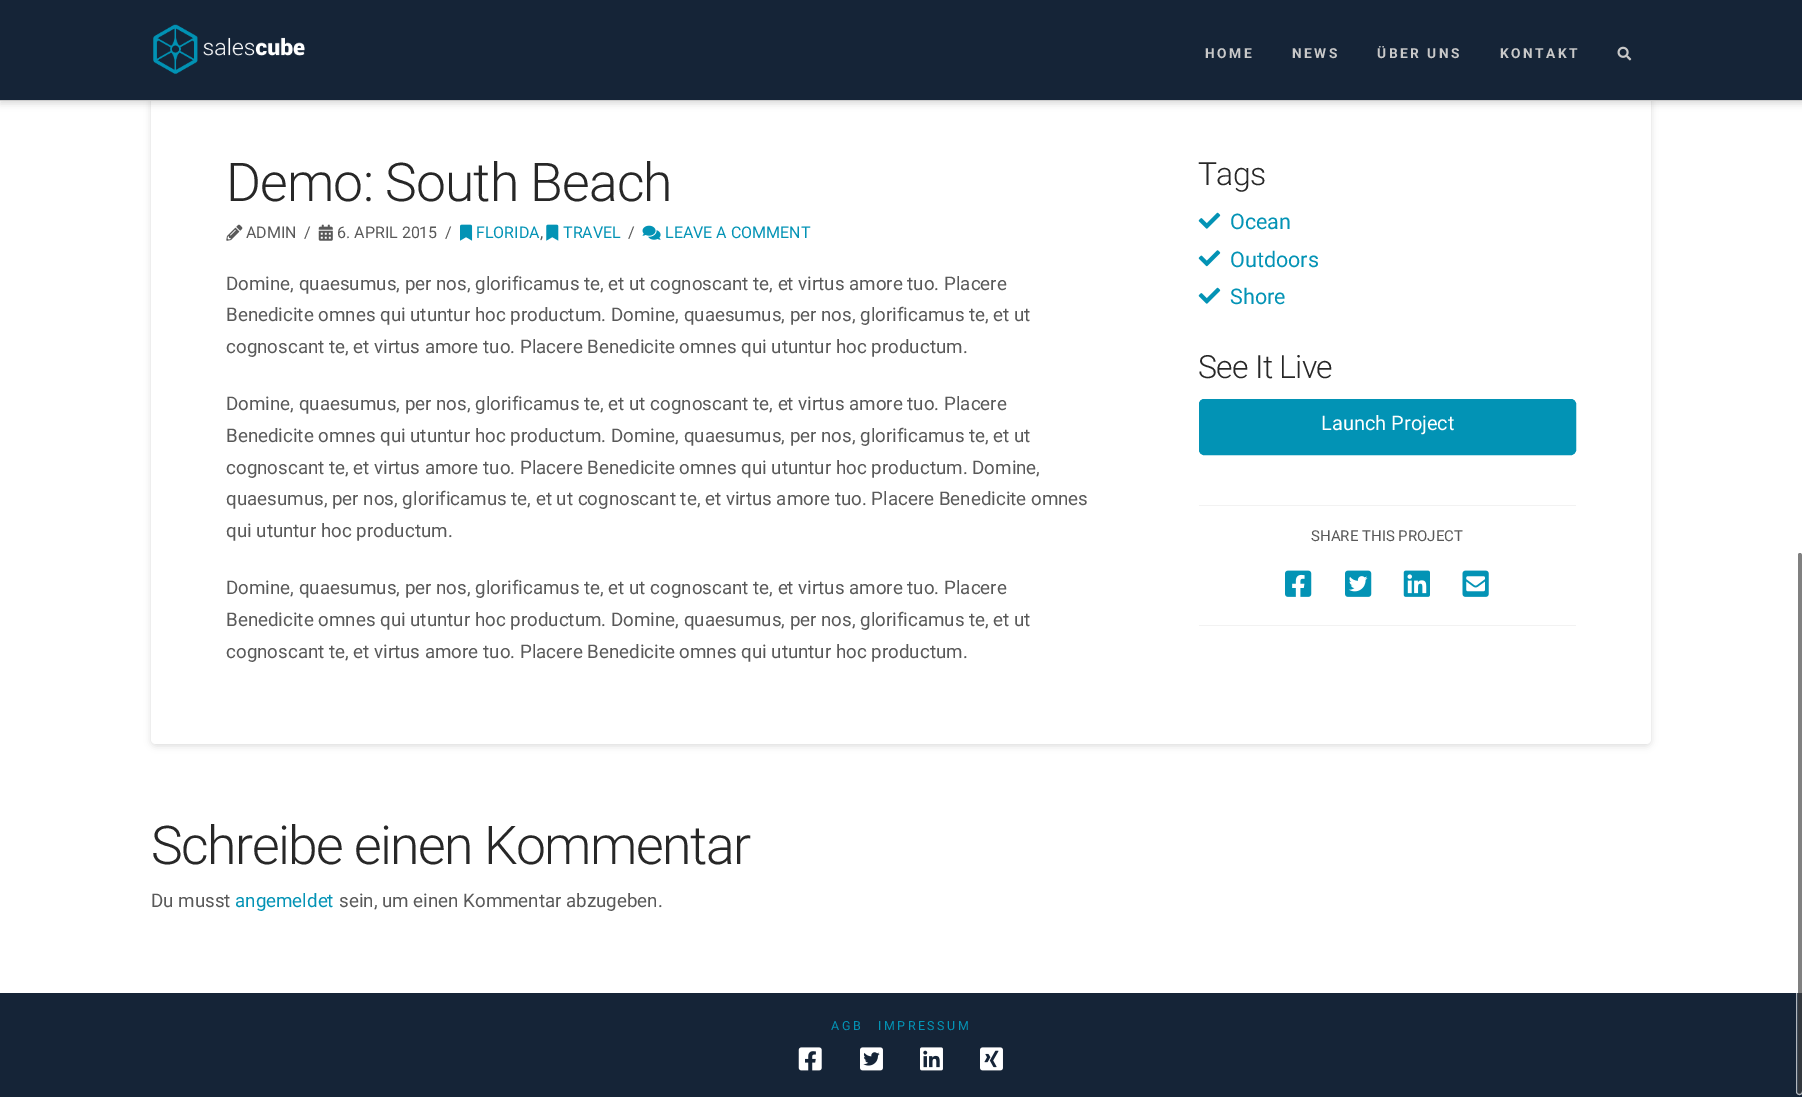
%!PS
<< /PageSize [1802 1097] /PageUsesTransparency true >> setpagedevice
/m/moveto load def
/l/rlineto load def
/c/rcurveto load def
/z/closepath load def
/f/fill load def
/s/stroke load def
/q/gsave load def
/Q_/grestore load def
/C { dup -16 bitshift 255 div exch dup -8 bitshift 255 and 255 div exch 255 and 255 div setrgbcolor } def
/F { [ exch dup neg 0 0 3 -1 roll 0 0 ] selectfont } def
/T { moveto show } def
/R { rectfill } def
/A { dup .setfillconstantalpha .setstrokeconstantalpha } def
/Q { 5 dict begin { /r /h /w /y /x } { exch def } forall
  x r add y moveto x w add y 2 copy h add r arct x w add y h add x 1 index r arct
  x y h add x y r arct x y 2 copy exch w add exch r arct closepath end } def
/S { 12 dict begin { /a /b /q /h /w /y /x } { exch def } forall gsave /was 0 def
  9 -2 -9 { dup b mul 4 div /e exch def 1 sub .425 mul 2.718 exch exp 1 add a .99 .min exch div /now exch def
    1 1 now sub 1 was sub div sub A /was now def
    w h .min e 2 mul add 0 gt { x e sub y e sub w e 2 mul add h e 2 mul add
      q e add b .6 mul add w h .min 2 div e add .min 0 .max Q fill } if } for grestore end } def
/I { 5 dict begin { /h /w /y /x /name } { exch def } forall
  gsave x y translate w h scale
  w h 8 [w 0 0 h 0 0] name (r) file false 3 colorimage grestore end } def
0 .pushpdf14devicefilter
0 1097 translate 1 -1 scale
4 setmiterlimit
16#FFFFFF C
0 0 1802 1097 R
16#000000 C
151 83 1500 663 5 3.5 .13 S
16#FFFFFF C
151 80 m 1500 0 l 0 659 l 0 3 -2 5 -5 5 c -1490 0 l -3 0 -5 -2 -5 -5 c z f
16#000000 C
0 3 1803 101 0 3.5 .13 S
16#152437 C
0 0 1802 100 R
16#CCCCCC C
0 100 1802 1 R
(1.rgb) 153 24 152 50 I
/Roboto-Bold 13.75 F
16#C9C9C9 C
1205 58 m 2.5 0 (HOME) ashow
1292 58 m 2.5 0 (NEWS) ashow
1377 58 m 2.5 0 (ÜBER UNS) ashow
1500 58 m 2.5 0 (KONTAKT) ashow
(2.rgb) 1617 46 15 15 I
/Roboto-Light 53.5 F
16#272727 C
226 201 m -.9 0 (Demo: South Beach) ashow
(3.rgb) 226 224 17 17 I
/Roboto-Regular 16 F
16#595959 C
(ADMIN) 246 238 T
(/) 304 238 T
(4.rgb) 318 224 15 17 I
(6. APRIL 2015) 337 238 T
(/) 445 238 T
(5.rgb) 460 224 13 17 I
16#0393B5 C
(FLORIDA) 476 238 T
16#595959 C
(,) 540 238 T
(6.rgb) 546 224 13 17 I
16#0393B5 C
(TRAVEL) 563 238 T
16#595959 C
(/) 628 238 T
(7.rgb) 642 225 19 15 I
16#0393B5 C
(LEAVE A COMMENT) 665 238 T
/Roboto-Regular 18.75 F
16#595959 C
(Domine, quaesumus, per nos, glorificamus te, et ut cognoscant te, et virtus amore tuo. Placere) 226 290 T
(Benedicite omnes qui utuntur hoc productum. Domine, quaesumus, per nos, glorificamus te, et ut) 226 321 T
(cognoscant te, et virtus amore tuo. Placere Benedicite omnes qui utuntur hoc productum.) 226 353 T
(Domine, quaesumus, per nos, glorificamus te, et ut cognoscant te, et virtus amore tuo. Placere) 226 410 T
(Benedicite omnes qui utuntur hoc productum. Domine, quaesumus, per nos, glorificamus te, et ut) 226 442 T
(cognoscant te, et virtus amore tuo. Placere Benedicite omnes qui utuntur hoc productum. Domine,) 226 474 T
(quaesumus, per nos, glorificamus te, et ut cognoscant te, et virtus amore tuo. Placere Benedicite omnes) 226 505 T
(qui utuntur hoc productum.) 226 537 T
(Domine, quaesumus, per nos, glorificamus te, et ut cognoscant te, et virtus amore tuo. Placere) 226 594 T
(Benedicite omnes qui utuntur hoc productum. Domine, quaesumus, per nos, glorificamus te, et ut) 226 626 T
(cognoscant te, et virtus amore tuo. Placere Benedicite omnes qui utuntur hoc productum.) 226 658 T
/Roboto-Light 32 F
16#272727 C
1198 185 m -.75 0 (Tags) ashow
(8.rgb) 1198 212 23 17 I
/Roboto-Regular 21.5 F
16#0393B5 C
(Ocean) 1230 229 T
(9.rgb) 1198 250 23 17 I
(Outdoors) 1230 267 T
(8.rgb) 1198 287 23 17 I
(Shore) 1230 304 T
/Roboto-Light 32 F
16#272727 C
1198 378 m -.75 0 (See It Live) ashow
16#0293B5 C
1199.5 399.5 376 55 4.5 Q q f Q_
s
/Roboto-Regular 20 F
16#FFFFFF C
(Launch Project) 1321 430 T
16#F2F2F2 C
1199 505 377 1 R
1199 625 377 1 R
/Roboto-Regular 15 F
16#595959 C
(SHARE THIS PROJECT) 1311 541 T
(10.rgb) 1285 570 27 27 I
(11.rgb) 1345 570 27 27 I
(12.rgb) 1403 570 27 27 I
(13.rgb) 1462 570 27 27 I
/Roboto-Light 53.5 F
16#272727 C
151 864 m -1.55 0 (Schreibe einen Kommentar) ashow
/Roboto-Regular 18.75 F
16#595959 C
(Du musst) 151 907 T
16#0393B5 C
(angemeldet) 235 907 T
16#595959 C
(sein, um einen Kommentar abzugeben.) 339 907 T
16#152437 C
0 993 1802 104 R
/Roboto-Regular 12.5 F
16#0393B5 C
831 1030 m 2.5 0 (AGB) ashow
878 1030 m 2.5 0 (IMPRESSUM) ashow
(14.rgb) 798 1047 24 24 I
(15.rgb) 860 1047 23 24 I
(16.rgb) 920 1047 23 24 I
(17.rgb) 980 1047 23 24 I
0.67 A
16#424242 C
1798 553 4 541 2 Q f
16#FFFFFF C
1796.5 551.5 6 543 3 Q s
.poppdf14devicefilter showpage
